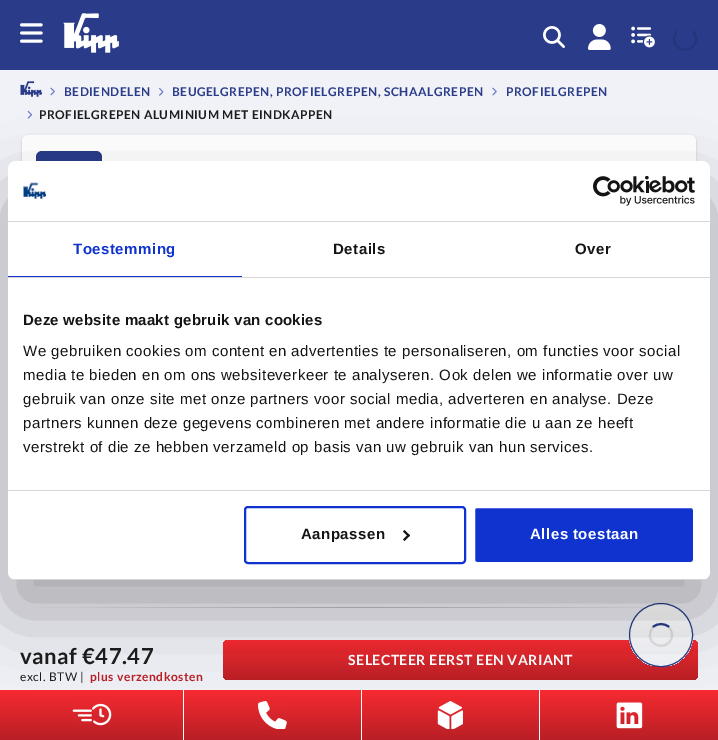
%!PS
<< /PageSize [718 740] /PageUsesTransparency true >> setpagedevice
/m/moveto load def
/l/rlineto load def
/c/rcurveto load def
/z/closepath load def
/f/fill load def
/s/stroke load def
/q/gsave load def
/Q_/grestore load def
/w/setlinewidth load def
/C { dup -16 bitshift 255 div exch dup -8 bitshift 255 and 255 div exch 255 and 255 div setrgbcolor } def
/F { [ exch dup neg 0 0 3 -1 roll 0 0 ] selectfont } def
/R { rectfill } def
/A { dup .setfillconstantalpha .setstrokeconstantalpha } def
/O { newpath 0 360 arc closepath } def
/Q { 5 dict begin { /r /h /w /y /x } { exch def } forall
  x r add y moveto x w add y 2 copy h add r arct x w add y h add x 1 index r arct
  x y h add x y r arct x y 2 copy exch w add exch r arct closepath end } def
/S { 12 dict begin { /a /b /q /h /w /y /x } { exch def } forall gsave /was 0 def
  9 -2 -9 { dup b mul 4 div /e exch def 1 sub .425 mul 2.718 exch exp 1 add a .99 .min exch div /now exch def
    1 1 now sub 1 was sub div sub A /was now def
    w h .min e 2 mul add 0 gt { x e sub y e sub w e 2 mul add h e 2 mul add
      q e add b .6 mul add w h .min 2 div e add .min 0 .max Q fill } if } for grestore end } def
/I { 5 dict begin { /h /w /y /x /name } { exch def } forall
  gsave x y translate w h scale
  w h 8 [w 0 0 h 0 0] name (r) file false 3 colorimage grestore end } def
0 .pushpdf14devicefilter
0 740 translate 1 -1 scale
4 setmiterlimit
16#FFFFFF C
0 0 718 740 R
q 0 70 m 718 0 l 0 620 l -718 0 l z clip newpath
<< /ShadingType 2 /ColorSpace /DeviceRGB /Coords [359 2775 359 0] /Extend [true true] /Function << /FunctionType 2 /Domain [0 1] /C0 [.894 .906 .941] /C1 [.949 .953 .973] /N 1 >> >> shfill Q_
16#293B89 C
0 0 718 70 R
(1.rgb) 20 23 23 20 I
(2.rgb) 63 13 56 40 I
(3.rgb) 543 26 22 22 I
(4.rgb) 588 24 23 26 I
(5.rgb) 631 26 24 22 I
16#25357B C
2 w
693 31 m 2 2.5 3 5 3 8 c 0 13 -19 15 -22 2 c -.5 -3.5 .5 -7 3 -10 c s
(6.rgb) 20 81 22 16 I
(7.rgb) 50 87 5 9 I
/Lato-Bold 12 F
16#293B89 C
64 96 m .5 0 (BEDIENDELEN) ashow
(8.rgb) 159 88 5 8 I
172 96 m .5 0 (BEUGELGREPEN, PROFIELGREPEN, SCHAALGREPEN) ashow
(9.rgb) 492 87 5 9 I
506 96 m .5 0 (PROFIELGREPEN) ashow
(10.rgb) 27 110 6 9 I
16#1C1C1C C
39 119 m .5 0 (PROFIELGREPEN ALUMINIUM MET EINDKAPPEN) ashow
16#000000 C
22 136 674 342 6 1 .2 S
16#FFFFFF C
22 135 674 342 6 Q f
16#293B89 C
36 151 66 29 6 Q f
q 34 607 m 650 0 l 0 1 l -650 0 l z clip newpath
<< /ShadingType 2 /ColorSpace /DeviceRGB /Coords [20 608 698 608] /Extend [true true] /Function << /FunctionType 3 /Domain [0 1] /Functions [<< /FunctionType 2 /Domain [0 1] /C0 [.937 .941 .965] /C1 [.733 .733 .733] /N 1 >> << /FunctionType 2 /Domain [0 1] /C0 [.733 .733 .733] /C1 [.937 .941 .965] /N 1 >>] /Bounds [.5] /Encode [0 1 0 1] >> >> shfill Q_
/Lato-Bold 22 F
16#1C1C1C C
20 664 m .5 0 (vanaf €47.47) ashow
/Lato-Regular 12 F
20 681 m .5 0 (excl. BTW |) ashow
/Lato-Bold 12 F
16#B81F25 C
90 681 m .5 0 (plus verzendkosten) ashow
q 223 640 475 40 6 Q clip newpath
<< /ShadingType 2 /ColorSpace /DeviceRGB /Coords [461 680 461 640] /Extend [true true] /Function << /FunctionType 2 /Domain [0 1] /C0 [.722 .122 .145] /C1 [.969 .165 .192] /N 1 >> >> shfill Q_
/Lato-Bold 14 F
16#FFFFFF C
348 665 m .5 0 (SELECTEER EERST EEN VARIANT) ashow
16#4D5F80 C
629 605 64 64 32 2.5 .06 S
q
629 603 64 64 32 Q clip newpath
q 629 604 m 64 0 l 0 62 l -64 0 l z clip newpath
<< /ShadingType 2 /ColorSpace /DeviceRGB /Coords [661 666 661 604] /Extend [true true] /Function << /FunctionType 2 /Domain [0 1] /C0 [.949 .953 .973] /C1 [1 1 1] /N 1 >> >> shfill Q_
Q_
16#293B89 C
1 w
661 635 31.5 O s
2 w
653 627 m 4.5 -4 11.5 -4 16 0 c s
0.1 A
16#000000 C
669 627 m 2 2.5 3 5 3 8 c 0 13 -19 15 -22 2 c -.5 -3.5 .5 -7 3 -10 c s
1 A
q 0 690 m 183 0 l 0 50 l -183 0 l z clip newpath
<< /ShadingType 2 /ColorSpace /DeviceRGB /Coords [92 740 92 690] /Extend [true true] /Function << /FunctionType 2 /Domain [0 1] /C0 [.722 .122 .145] /C1 [.969 .165 .192] /N 1 >> >> shfill Q_
(11.rgb) 72 703 40 23 I
q 184 690 m 177 0 l 0 50 l -177 0 l z clip newpath
<< /ShadingType 2 /ColorSpace /DeviceRGB /Coords [273 740 273 690] /Extend [true true] /Function << /FunctionType 2 /Domain [0 1] /C0 [.722 .122 .145] /C1 [.969 .165 .192] /N 1 >> >> shfill Q_
(12.rgb) 258 701 29 28 I
q 362 690 m 177 0 l 0 50 l -177 0 l z clip newpath
<< /ShadingType 2 /ColorSpace /DeviceRGB /Coords [451 740 451 690] /Extend [true true] /Function << /FunctionType 2 /Domain [0 1] /C0 [.722 .122 .145] /C1 [.969 .165 .192] /N 1 >> >> shfill Q_
(13.rgb) 437 701 26 28 I
q 540 690 m 178 0 l 0 50 l -178 0 l z clip newpath
<< /ShadingType 2 /ColorSpace /DeviceRGB /Coords [629 740 629 690] /Extend [true true] /Function << /FunctionType 2 /Domain [0 1] /C0 [.722 .122 .145] /C1 [.969 .165 .192] /N 1 >> >> shfill Q_
(14.rgb) 616 702 27 27 I
8 193 702 419 8 34 .3 S
16#FFFFFF C
8 161 702 419 8 Q f
16#D6D6D6 C
8 221 702 1 R
(15.rgb) 23 182 23 17 I
(16.rgb) 593 176 102 30 I
8 277 702 1 R
16#1032CF C
8 276 234 1 R
/LiberationSans-Bold 15 F
73 254 m .5 0 (Toestemming) ashow
16#141414 C
333 254 m .5 0 (Details) ashow
575 254 m .5 0 (Over) ashow
16#D6D6D6 C
8 490 702 1 R
16#141414 C
23 325 m .25 0 (Deze website maakt gebruik van cookies) ashow
/LiberationSans-Regular 15 F
23 356 m .5 0 (We gebruiken cookies om content en advertenties te personaliseren, om functies voor social) ashow
23 380 m .5 0 (media te bieden en om ons websiteverkeer te analyseren. Ook delen we informatie over uw) ashow
23 404 m .5 0 (gebruik van onze site met onze partners voor social media, adverteren en analyse. Deze) ashow
23 428 m .5 0 (partners kunnen deze gegevens combineren met andere informatie die u aan ze heeft) ashow
23 452 m .5 0 (verstrekt of die ze hebben verzameld op basis van uw gebruik van hun services.) ashow
q
8 161 702 419 8 Q clip newpath
16#D6D6D6 C
8 579 702 1 R
Q_
16#1032CF C
245 507 220 56 3 Q s
/LiberationSans-Bold 15 F
16#141414 C
301 539 m .5 0 (Aanpassen) ashow
404.5 530 m 5.5 5.5 l -1.5 1.5 l -5.5 -5.5 l z f
408.5 534 m 1.5 1.5 l -5.5 5.5 l -1.5 -1.5 l z f
16#1032CF C
474 507 220 56 3 Q q f Q_
16#FFFFFF C
s
530 539 m .5 0 (Alles toestaan) ashow
.poppdf14devicefilter showpage
